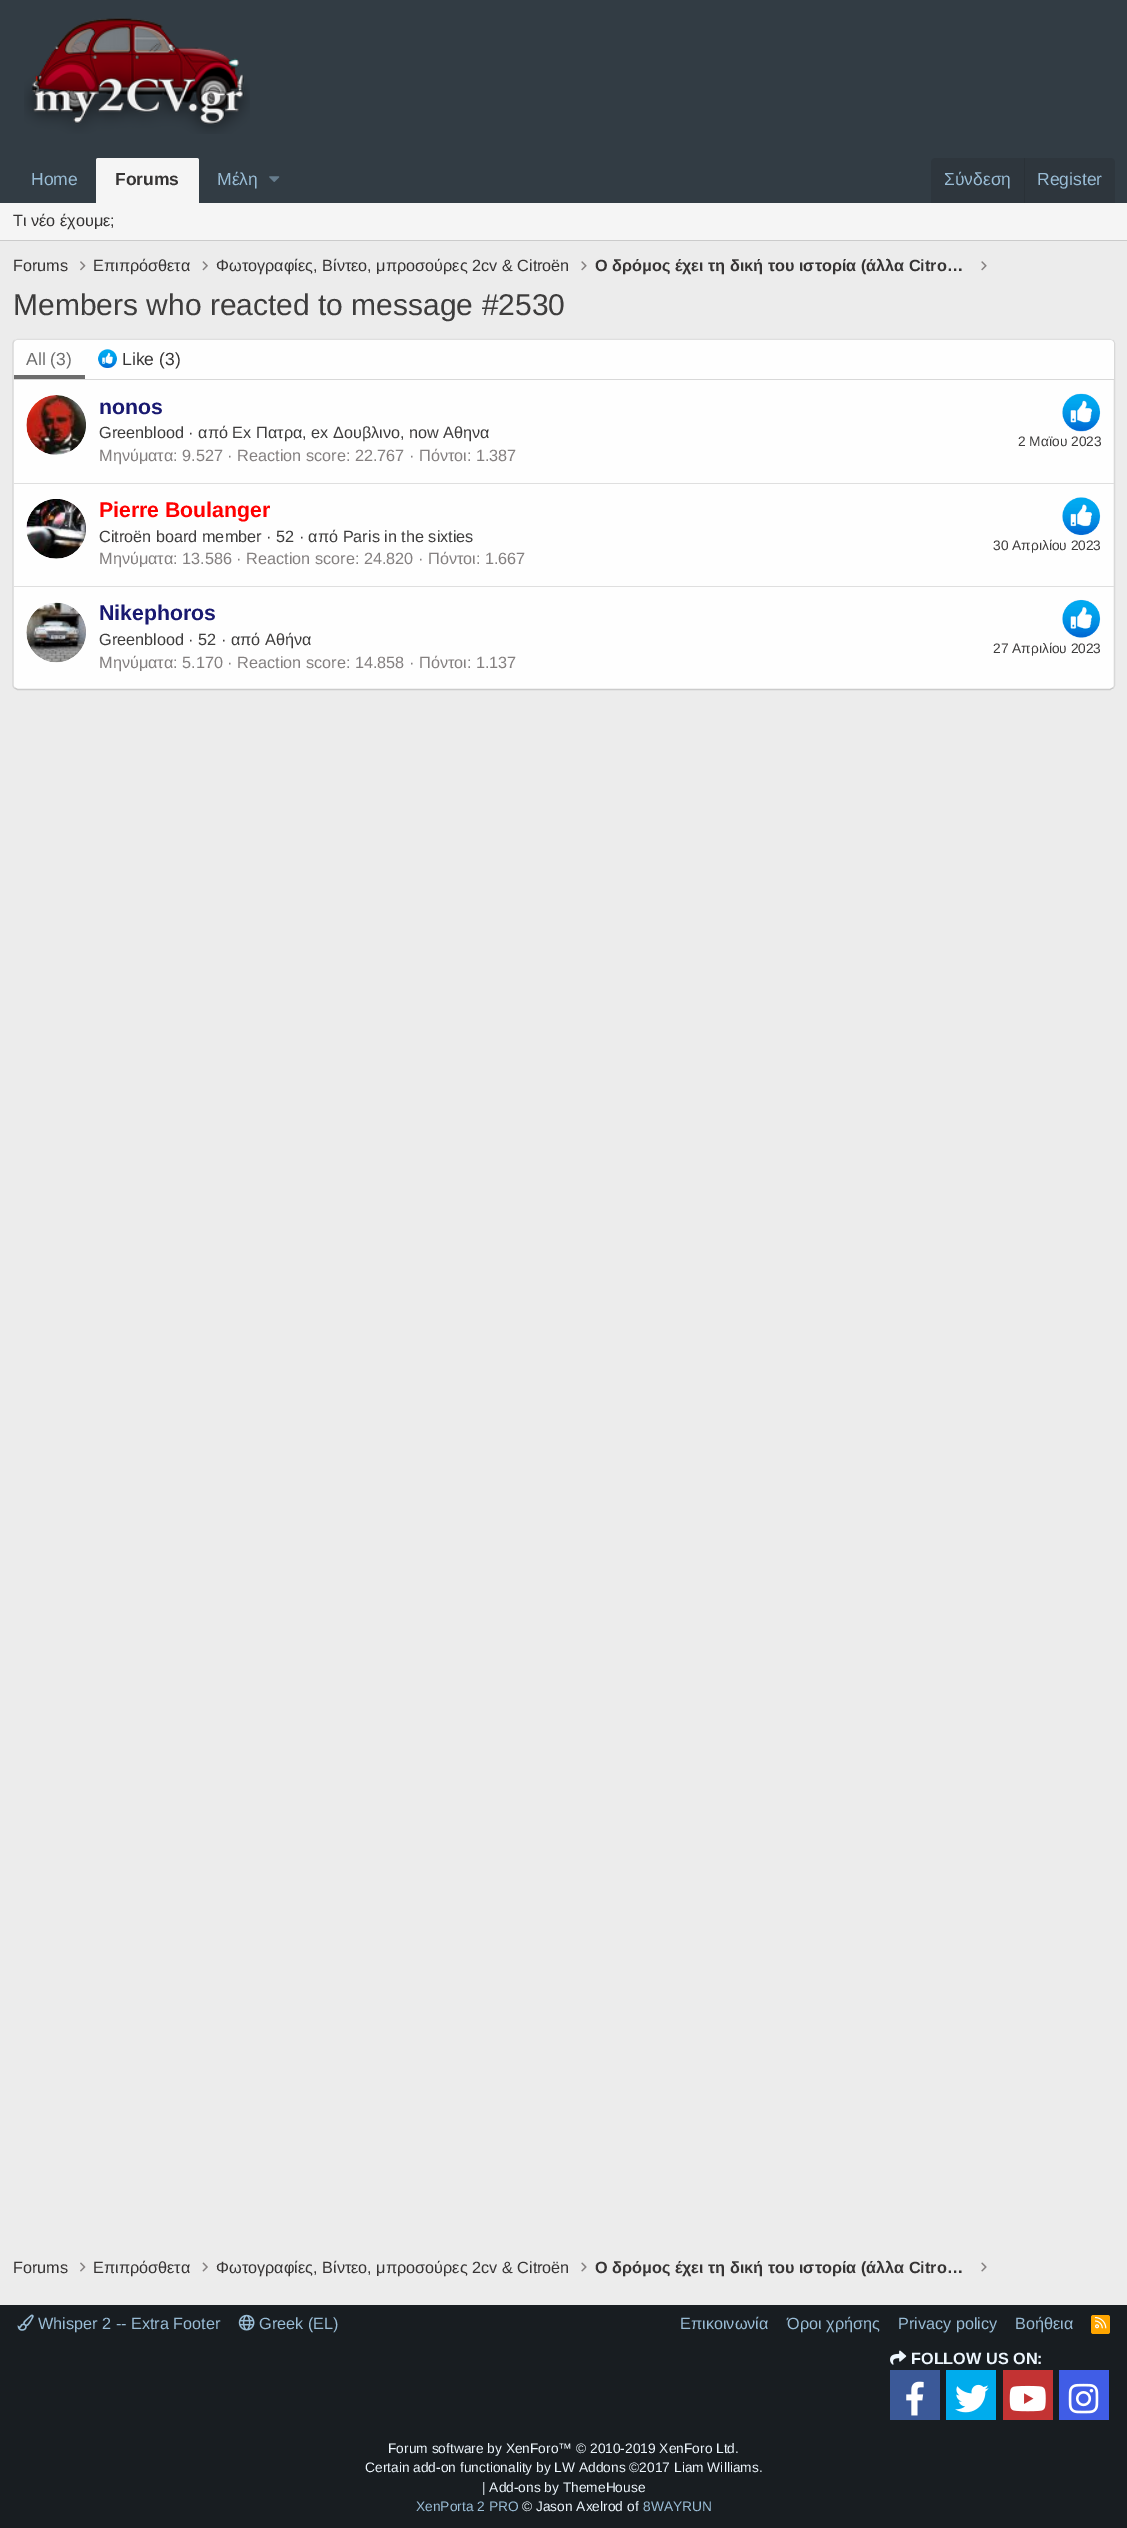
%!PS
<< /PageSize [1127 2528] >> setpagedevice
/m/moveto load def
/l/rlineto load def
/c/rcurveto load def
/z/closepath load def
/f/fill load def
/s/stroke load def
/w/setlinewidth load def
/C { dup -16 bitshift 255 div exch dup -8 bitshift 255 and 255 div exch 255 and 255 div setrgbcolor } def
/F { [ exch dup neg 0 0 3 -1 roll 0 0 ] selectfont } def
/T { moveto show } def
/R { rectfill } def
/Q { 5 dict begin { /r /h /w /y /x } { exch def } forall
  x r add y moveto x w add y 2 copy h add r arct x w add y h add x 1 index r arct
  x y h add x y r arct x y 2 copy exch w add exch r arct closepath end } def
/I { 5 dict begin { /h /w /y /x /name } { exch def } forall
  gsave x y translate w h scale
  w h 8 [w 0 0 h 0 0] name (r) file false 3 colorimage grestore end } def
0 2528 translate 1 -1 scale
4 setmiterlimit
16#ECECEC C
0 0 1127 2528 R
16#323C44 C
0 0 1127 203 R
(1.rgb) 24 17 226 117 I
/LiberationSans-Regular 17.5 F
16#99BCD5 C
(Home) 31 185 T
16#F5F5F5 C
98.5 158 m 98 0 l 1.5 0 2.5 1 2.5 2.5 c 0 42.5 l -103 0 l 0 -42.5 l 0 -1.5 1 -2.5 2.5 -2.5 c z f
/LiberationSans-Bold 17.5 F
16#363434 C
(Forums) 115 185 T
/LiberationSans-Regular 17.5 F
16#99BCD5 C
(Μέλη) 217 185 T
(2.rgb) 269 176 11 6 I
16#2E363D C
936 158 m 174 0 l 3 0 5 2 5 5 c 0 40 l -184 0 l 0 -40 l 0 -3 2 -5 5 -5 c z f
16#99BCD5 C
(Σύνδεση) 944 185 T
16#2A3137 C
1024 158 1 45 R
16#99BCD5 C
(Register) 1037 185 T
16#F5F5F5 C
0 203 1127 37 R
16#CBCBCB C
0 240 1127 1 R
/LiberationSans-Regular 16.25 F
16#363434 C
(Τι νέο έχουμε;) 13 226 T
(Forums) 13 271 T
(3.rgb) 80 261 6 10 I
(Επιπρόσθετα) 93 271 T
(4.rgb) 202 261 6 10 I
(Φωτογραφίες, Βίντεο, μπροσούρες 2cv & Citroën) 216 271 T
(5.rgb) 581 261 6 10 I
/LiberationSans-Bold 16.25 F
(Ο δρόμος έχει τη δική του ιστορία \(άλλα Citro…) 595 271 T
(5.rgb) 981 261 6 10 I
/LiberationSans-Regular 30 F
16#3E3D3D C
(Members who reacted to message #2530) 13 315 T
16#FEFEFE C
13 339 1102 351 5 Q f
16#DFDFDF C
1.2 w
14.5 340.5 m 3 -1 l 1092.5 0 l 3 1 l s
16#D8D8D8 C
1113 340.5 m 1 1 1.5 2 1.5 3.5 c 0 341 l 0 1 -.5 2.5 -1.5 3 c s
16#CBCBCB C
1113 688 m -3 1.5 l -1092.5 0 l -3 -1.5 l s
16#D8D8D8 C
14.5 688 m -1 -.5 -1.5 -2 -1.5 -3 c 0 -341 l 0 -1.5 .5 -2.5 1.5 -3.5 c s
16#FEFEFE C
18 340 m 1092 0 l 2 0 4 2 4 4 c 0 36 l -1100 0 l 0 -36 l 0 -2 2 -4 4 -4 c z f
16#D8D8D8 C
14 379 1100 1 R
16#6D6D6D C
14 375 71 4 R
/LiberationSans-Regular 17.5 F
(All \(3\)) 26 365 T
(6.rgb) 98 349 19 19 I
16#363434 C
(Like \(3\)) 122 365 T
(7.rgb) 26 395 60 60 I
/LiberationSans-Bold 21.25 F
16#191970 C
(nonos) 99 414 T
/LiberationSans-Regular 16.25 F
16#3E3D3D C
(Greenbloοd · από Ex Πατρα, ex Δουβλινο, now Αθηνα) 99 438 T
(8.rgb) 1062 393 39 39 I
/LiberationSans-Regular 13.75 F
(2 Μαϊου 2023) 1018 446 T
/LiberationSans-Regular 16.25 F
16#848080 C
(Μηνύματα: 9.527 · Reaction score: 22.767 · Πόντοι: 1.387) 99 461 T
16#DFDFDF C
14 483 1100 1 R
(9.rgb) 26 499 60 60 I
/LiberationSans-Bold 21.25 F
16#FF0000 C
(Pierre Boulanger) 99 517 T
/LiberationSans-Regular 16.25 F
16#3E3D3D C
(Citroën board member · 52 · από Paris in the sixties) 99 542 T
(10.rgb) 1062 497 39 39 I
/LiberationSans-Regular 13.75 F
(30 Απριλίου 2023) 993 550 T
/LiberationSans-Regular 16.25 F
16#848080 C
(Μηνύματα: 13.586 · Reaction score: 24.820 · Πόντοι: 1.667) 99 564 T
16#DFDFDF C
14 586 1100 1 R
(11.rgb) 26 602 60 61 I
/LiberationSans-Bold 21.25 F
16#191970 C
(Nikephoros) 99 620 T
/LiberationSans-Regular 16.25 F
16#3E3D3D C
(Greenbloοd · 52 · από Αθήνα) 99 645 T
(12.rgb) 1062 599 39 39 I
/LiberationSans-Regular 13.75 F
(27 Απριλίου 2023) 993 653 T
/LiberationSans-Regular 16.25 F
16#848080 C
(Μηνύματα: 5.170 · Reaction score: 14.858 · Πόντοι: 1.137) 99 668 T
16#363434 C
(Forums) 13 2273 T
(13.rgb) 80 2262 6 10 I
(Επιπρόσθετα) 93 2273 T
(14.rgb) 202 2262 6 10 I
(Φωτογραφίες, Βίντεο, μπροσούρες 2cv & Citroën) 216 2273 T
(15.rgb) 581 2262 6 10 I
/LiberationSans-Bold 16.25 F
(Ο δρόμος έχει τη δική του ιστορία \(άλλα Citro…) 595 2273 T
(15.rgb) 981 2262 6 10 I
16#181D21 C
0 2305 1127 223 R
(16.rgb) 17 2314 17 17 I
/LiberationSans-Regular 16.25 F
16#99BCD5 C
(Whisper 2 -- Extra Footer) 38 2329 T
(17.rgb) 238 2314 17 17 I
(Greek \(EL\)) 259 2329 T
(Επικοινωνία) 680 2329 T
(Όροι χρήσης) 787 2329 T
(Privacy policy) 898 2329 T
(Βοήθεια) 1015 2329 T
16#FFA500 C
1091 2315 19 19 2.5 Q f
(18.rgb) 1095 2316 12 13 I
(19.rgb) 890 2350 17 15 I
/LiberationSans-Bold 16.25 F
16#EDF6FD C
(FOLLOW US ON:) 911 2364 T
16#3B5998 C
890 2370 50 50 R
(20.rgb) 906 2381 18 35 I
16#00ACED C
946 2370 50 50 R
(21.rgb) 955 2384 34 29 I
16#C33333 C
1003 2370 50 50 R
(22.rgb) 1009 2385 37 27 I
16#405DE6 C
1059 2370 50 50 R
(23.rgb) 1068 2383 31 31 I
/LiberationSans-Regular 13.75 F
16#EDF6FD C
(Forum software by XenForo™ © 2010-2019 XenForo Ltd.) 388 2453 T
(Certain add-on functionality by LW Addons ©2017 Liam Williams.) 365 2472 T
(| Add-ons by ThemeHouse) 482 2492 T
16#99BCD5 C
(XenPorta 2 PRO) 416 2511 T
16#EDF6FD C
(© Jason Axelrod of) 522 2511 T
16#99BCD5 C
(8WAYRUN) 643 2511 T
showpage
